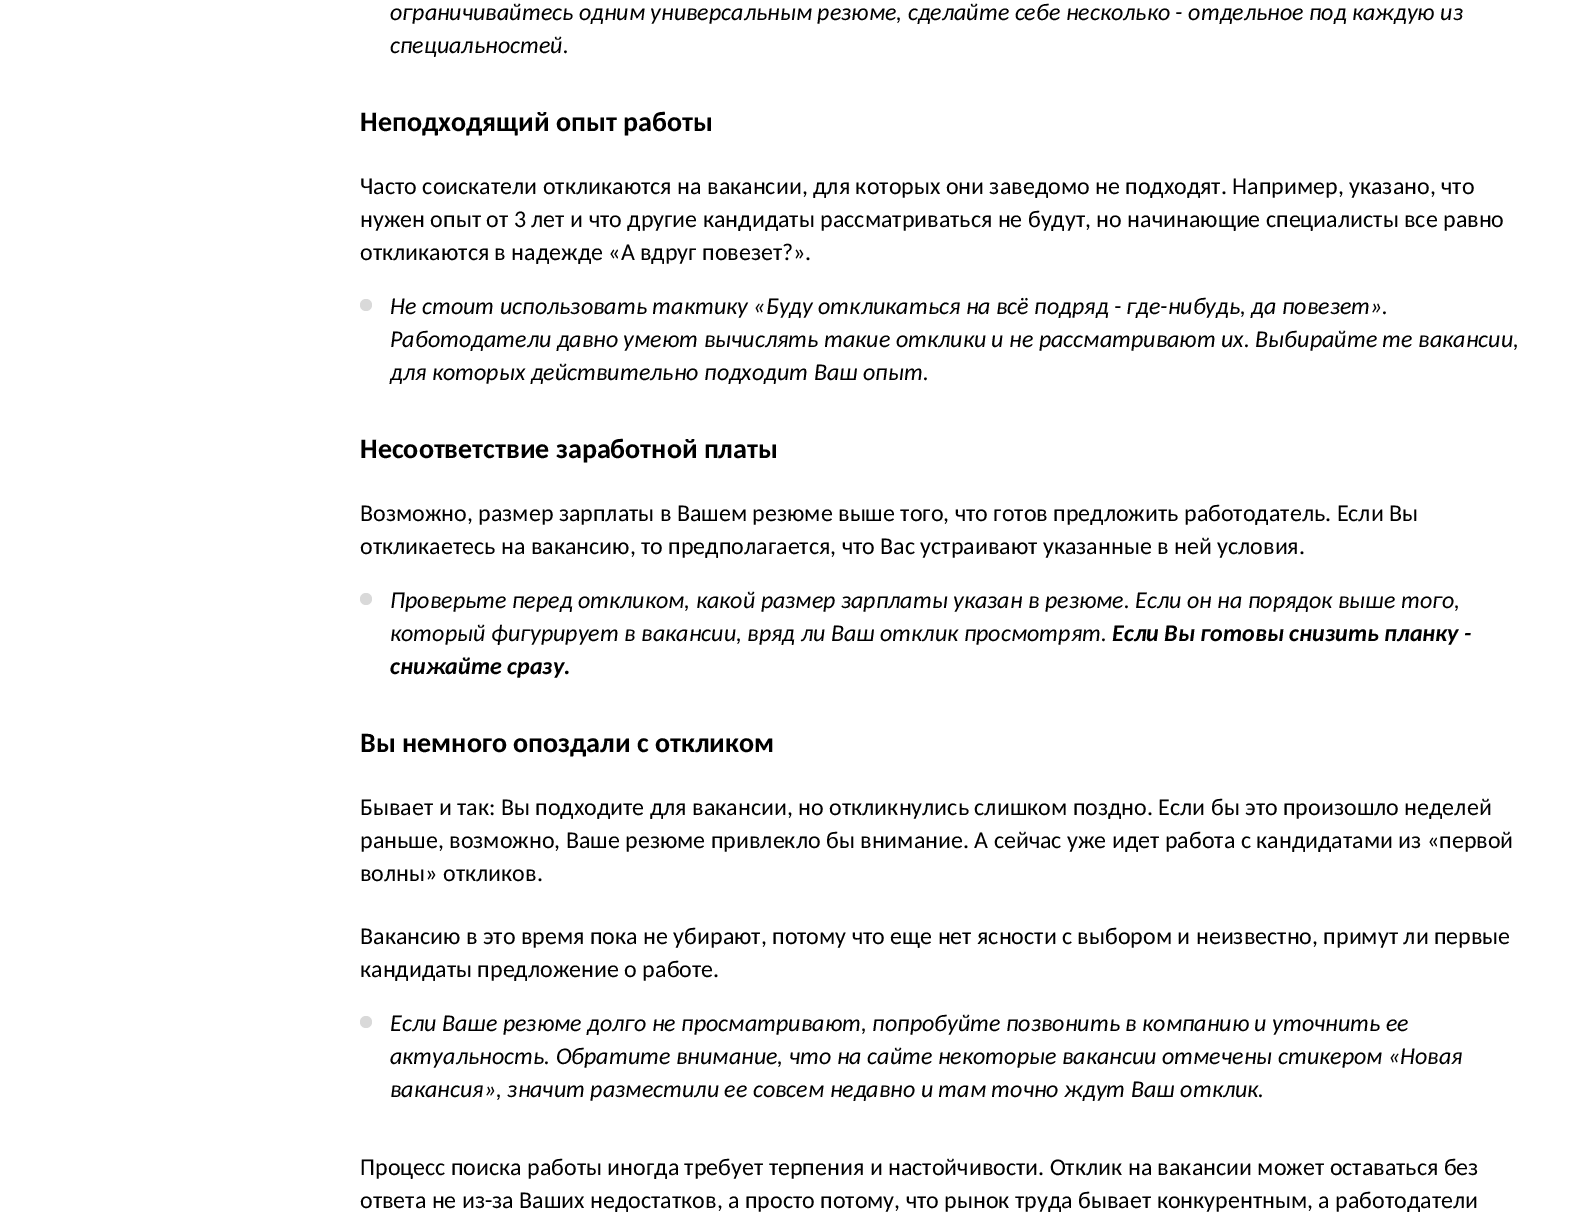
%!PS
<< /PageSize [1570 1230] >> setpagedevice
/f/fill load def
/C { dup -16 bitshift 255 div exch dup -8 bitshift 255 and 255 div exch 255 and 255 div setrgbcolor } def
/F { [ exch dup neg 0 0 3 -1 roll 0 0 ] selectfont } def
/T { moveto show } def
/R { rectfill } def
/O { newpath 0 360 arc closepath } def
0 1230 translate 1 -1 scale
4 setmiterlimit
16#FFFFFF C
0 0 1570 1230 R
/Carlito-Italic 24 F
16#000000 C
(ограничивайтесь одним универсальным резюме, сделайте себе несколько - отдельное под каждую из) 390 20 T
(специальностей.) 390 53 T
/Carlito-Bold 28 F
(Неподходящий опыт работы) 360 131 T
/Carlito-Regular 24 F
(Часто соискатели откликаются на вакансии, для которых они заведомо не подходят. Например, указано, что) 360 194 T
(нужен опыт от 3 лет и что другие кандидаты рассматриваться не будут, но начинающие специалисты все равно) 360 227 T
(откликаются в надежде «А вдруг повезет?».) 360 260 T
16#D9D9D9 C
366 305 6 O f
/Carlito-Italic 24 F
16#000000 C
(Не стоит использовать тактику «Буду откликаться на всё подряд - где-нибудь, да повезет».) 390 314 T
(Работодатели давно умеют вычислять такие отклики и не рассматривают их. Выбирайте те вакансии,) 390 347 T
(для которых действительно подходит Ваш опыт.) 390 380 T
/Carlito-Bold 28 F
(Несоответствие заработной платы) 360 458 T
/Carlito-Regular 24 F
(Возможно, размер зарплаты в Вашем резюме выше того, что готов предложить работодатель. Если Вы) 360 521 T
(откликаетесь на вакансию, то предполагается, что Вас устраивают указанные в ней условия.) 360 554 T
16#D9D9D9 C
366 599 6 O f
/Carlito-Italic 24 F
16#000000 C
(Проверьте перед откликом, какой размер зарплаты указан в резюме. Если он на порядок выше того,) 390 608 T
(который фигурирует в вакансии, вряд ли Ваш отклик просмотрят.) 390 641 T
/Carlito-BoldItalic 24 F
(Если Вы готовы снизить планку -) 1112 641 T
(снижайте сразу.) 390 674 T
/Carlito-Bold 28 F
(Вы немного опоздали с откликом) 360 752 T
/Carlito-Regular 24 F
(Бывает и так: Вы подходите для вакансии, но откликнулись слишком поздно. Если бы это произошло неделей) 360 815 T
(раньше, возможно, Ваше резюме привлекло бы внимание. А сейчас уже идет работа с кандидатами из «первой) 360 848 T
(волны» откликов.) 360 881 T
(Вакансию в это время пока не убирают, потому что еще нет ясности с выбором и неизвестно, примут ли первые) 360 944 T
(кандидаты предложение о работе.) 360 977 T
16#D9D9D9 C
366 1022 6 O f
/Carlito-Italic 24 F
16#000000 C
(Если Ваше резюме долго не просматривают, попробуйте позвонить в компанию и уточнить ее) 390 1031 T
(актуальность. Обратите внимание, что на сайте некоторые вакансии отмечены стикером «Новая) 390 1064 T
(вакансия», значит разместили ее совсем недавно и там точно ждут Ваш отклик.) 390 1097 T
/Carlito-Regular 24 F
(Процесс поиска работы иногда требует терпения и настойчивости. Отклик на вакансии может оставаться без) 360 1175 T
(ответа не из-за Ваших недостатков, а просто потому, что рынок труда бывает конкурентным, а работодатели) 360 1208 T
showpage
